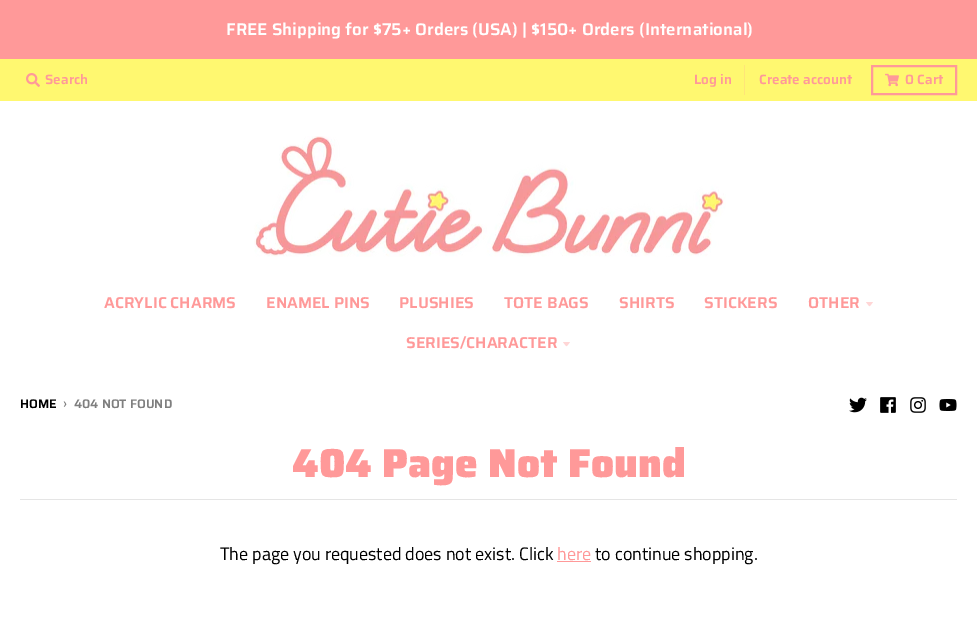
%!PS
<< /PageSize [977 644] >> setpagedevice
/m/moveto load def
/c/rcurveto load def
/z/closepath load def
/f/fill load def
/w/setlinewidth load def
/C { dup -16 bitshift 255 div exch dup -8 bitshift 255 and 255 div exch 255 and 255 div setrgbcolor } def
/F { [ exch dup neg 0 0 3 -1 roll 0 0 ] selectfont } def
/T { moveto show } def
/R { rectfill } def
/I { 5 dict begin { /h /w /y /x /name } { exch def } forall
  gsave x y translate w h scale
  w h 8 [w 0 0 h 0 0] name (r) file false 3 colorimage grestore end } def
0 644 translate 1 -1 scale
4 setmiterlimit
16#FFFFFF C
0 0 977 644 R
16#FF9999 C
0 0 977 59 R
/Saira-SemiBold 16.9 F
16#FFFFFF C
(FREE Shipping for $75+ Orders \(USA\) | $150+ Orders \(International\)) 226 35 T
16#FFF870 C
0 59 977 42 R
(1.rgb) 26 73 14 14 I
/Saira-SemiBold 13.5 F
16#FF9999 C
(Search) 45 84 T
16#FFE578 C
744 65 1 30 R
16#FF9999 C
(Log in) 694 84 T
(Create account) 759 84 T
2 w
872 66 84 28 rectstroke
(2.rgb) 885 73 14 14 I
(0 Cart) 905 84 T
(3.rgb) 254 136 472 121 I
/Saira-SemiBold 15.75 F
(ACRYLIC CHARMS) 104 308 T
(ENAMEL PINS) 266 308 T
(PLUSHIES) 399 308 T
(TOTE BAGS) 504 308 T
(SHIRTS) 619 308 T
(STICKERS) 704 308 T
(OTHER) 808 308 T
16#FFD6D6 C
866 302 m 4.5 5.5 2.5 5.5 7 0 c z f
16#FF9999 C
(SERIES/CHARACTER) 406 348 T
16#FFD6D6 C
563 342 m 4.5 5.5 2.5 5.5 7 0 c z f
/Saira-SemiBold 12.5 F
16#000000 C
(HOME) 20 408 T
16#7F7F7F C
(›) 63 408 T
(404 NOT FOUND) 74 408 T
(4.rgb) 849 397 18 16 I
(5.rgb) 880 397 16 16 I
(6.rgb) 910 397 16 16 I
(7.rgb) 939 399 18 12 I
16#E5E5E5 C
20 499 937 1 R
/Saira-Black 40.5 F
16#FF9999 C
(404 Page Not Found) 292 477 T
/TitilliumWeb-Regular 18 F
16#000000 C
(The page you requested does not exist. Click) 220 560 T
16#FF9999 C
(here) 557 560 T
557 561 34 1 R
16#000000 C
(to continue shopping.) 595 560 T
showpage
